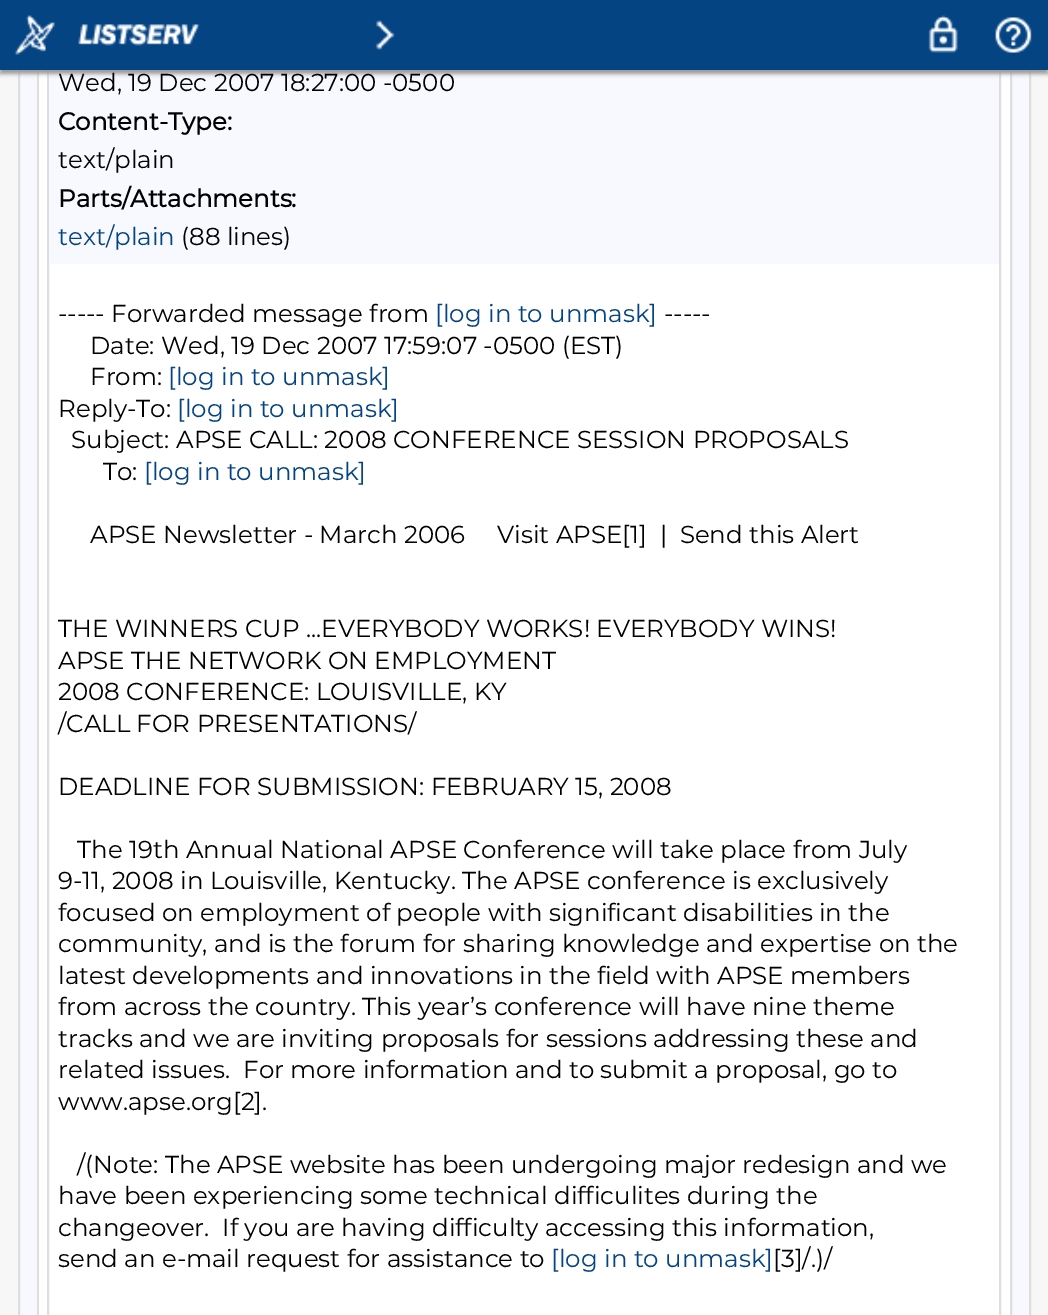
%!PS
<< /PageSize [1048 1315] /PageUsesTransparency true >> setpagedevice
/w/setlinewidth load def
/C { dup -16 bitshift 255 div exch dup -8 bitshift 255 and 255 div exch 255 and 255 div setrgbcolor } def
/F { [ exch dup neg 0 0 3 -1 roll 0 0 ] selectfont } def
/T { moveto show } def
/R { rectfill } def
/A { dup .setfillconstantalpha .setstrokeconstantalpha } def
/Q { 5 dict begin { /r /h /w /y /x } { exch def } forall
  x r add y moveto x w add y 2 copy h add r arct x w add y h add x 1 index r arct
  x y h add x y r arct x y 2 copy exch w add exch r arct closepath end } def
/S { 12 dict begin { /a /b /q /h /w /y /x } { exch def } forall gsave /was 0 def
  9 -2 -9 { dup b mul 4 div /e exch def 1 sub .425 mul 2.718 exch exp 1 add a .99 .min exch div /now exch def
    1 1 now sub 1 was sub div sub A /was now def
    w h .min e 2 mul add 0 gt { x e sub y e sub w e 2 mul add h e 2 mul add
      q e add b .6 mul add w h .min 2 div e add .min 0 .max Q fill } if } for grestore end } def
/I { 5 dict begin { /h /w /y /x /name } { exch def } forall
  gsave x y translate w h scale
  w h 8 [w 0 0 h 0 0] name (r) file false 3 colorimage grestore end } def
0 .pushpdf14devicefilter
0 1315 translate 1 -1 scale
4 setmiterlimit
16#F7F7F7 C
0 0 1048 1315 R
16#F7F9FE C
20 70 1009 1245 R
16#DEDEDE C
2 w
19 -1 1011 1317 rectstroke
38 -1 973 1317 rectstroke
16#FFFFFF C
39 70 971 1245 R
16#DEDEDE C
48 -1 952 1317 rectstroke
16#F7F9FE C
49 70 950 194 R
16#999999 C
0 4 1048 70 0 2 1 S
16#054483 C
0 0 1048 70 R
(1.rgb) 15 15 40 40 I
(2.rgb) 78 24 122 22 I
(3.rgb) 375 20 20 30 I
(4.rgb) 928 15 30 38 I
(5.rgb) 995 17 37 36 I
/Montserrat-Thin 24.5 F
16#000000 C
(Wed, 19 Dec 2007 18:27:00 -0500) 58 91 T
/Montserrat-Bold 24.5 F
(Content-Type:) 58 130 T
/Montserrat-Thin 24.5 F
(text/plain) 58 168 T
/Montserrat-Bold 24.5 F
(Parts/Attachments:) 58 207 T
/Montserrat-Thin 24.5 F
16#054483 C
(text/plain) 58 245 T
16#000000 C
(\(88 lines\)) 181 245 T
(----- Forwarded message from) 58 322 T
16#054483 C
([log in to unmask]) 435 322 T
16#000000 C
(-----) 664 322 T
(Date: Wed, 19 Dec 2007 17:59:07 -0500 \(EST\)) 90 354 T
(From:) 90 385 T
16#054483 C
([log in to unmask]) 168 385 T
16#000000 C
(Reply-To:) 58 417 T
16#054483 C
([log in to unmask]) 177 417 T
16#000000 C
(Subject: APSE CALL: 2008 CONFERENCE SESSION PROPOSALS) 71 448 T
(To:) 103 480 T
16#054483 C
([log in to unmask]) 144 480 T
16#000000 C
(APSE Newsletter - March 2006     Visit APSE[1]  |  Send this Alert) 90 543 T
(THE WINNERS CUP ...EVERYBODY WORKS! EVERYBODY WINS!) 58 637 T
(APSE THE NETWORK ON EMPLOYMENT) 58 669 T
(2008 CONFERENCE: LOUISVILLE, KY) 58 700 T
(/CALL FOR PRESENTATIONS/) 58 732 T
(DEADLINE FOR SUBMISSION: FEBRUARY 15, 2008) 58 795 T
(The 19th Annual National APSE Conference will take place from July) 77 858 T
(9-11, 2008 in Louisville, Kentucky. The APSE conference is exclusively) 58 889 T
(focused on employment of people with significant disabilities in the) 58 921 T
(community, and is the forum for sharing knowledge and expertise on the) 58 952 T
(latest developments and innovations in the field with APSE members) 58 984 T
(from across the country. This year’s conference will have nine theme) 58 1015 T
(tracks and we are inviting proposals for sessions addressing these and) 58 1047 T
(related issues.  For more information and to submit a proposal, go to) 58 1078 T
(www.apse.org[2].) 58 1110 T
(/\(Note: The APSE website has been undergoing major redesign and we) 77 1173 T
(have been experiencing some technical difficulites during the) 58 1204 T
(changeover.  If you are having difficulty accessing this information,) 58 1236 T
(send an e-mail request for assistance to) 58 1267 T
16#054483 C
([log in to unmask]) 551 1267 T
16#000000 C
([3]/.\)/) 773 1267 T
.poppdf14devicefilter showpage
